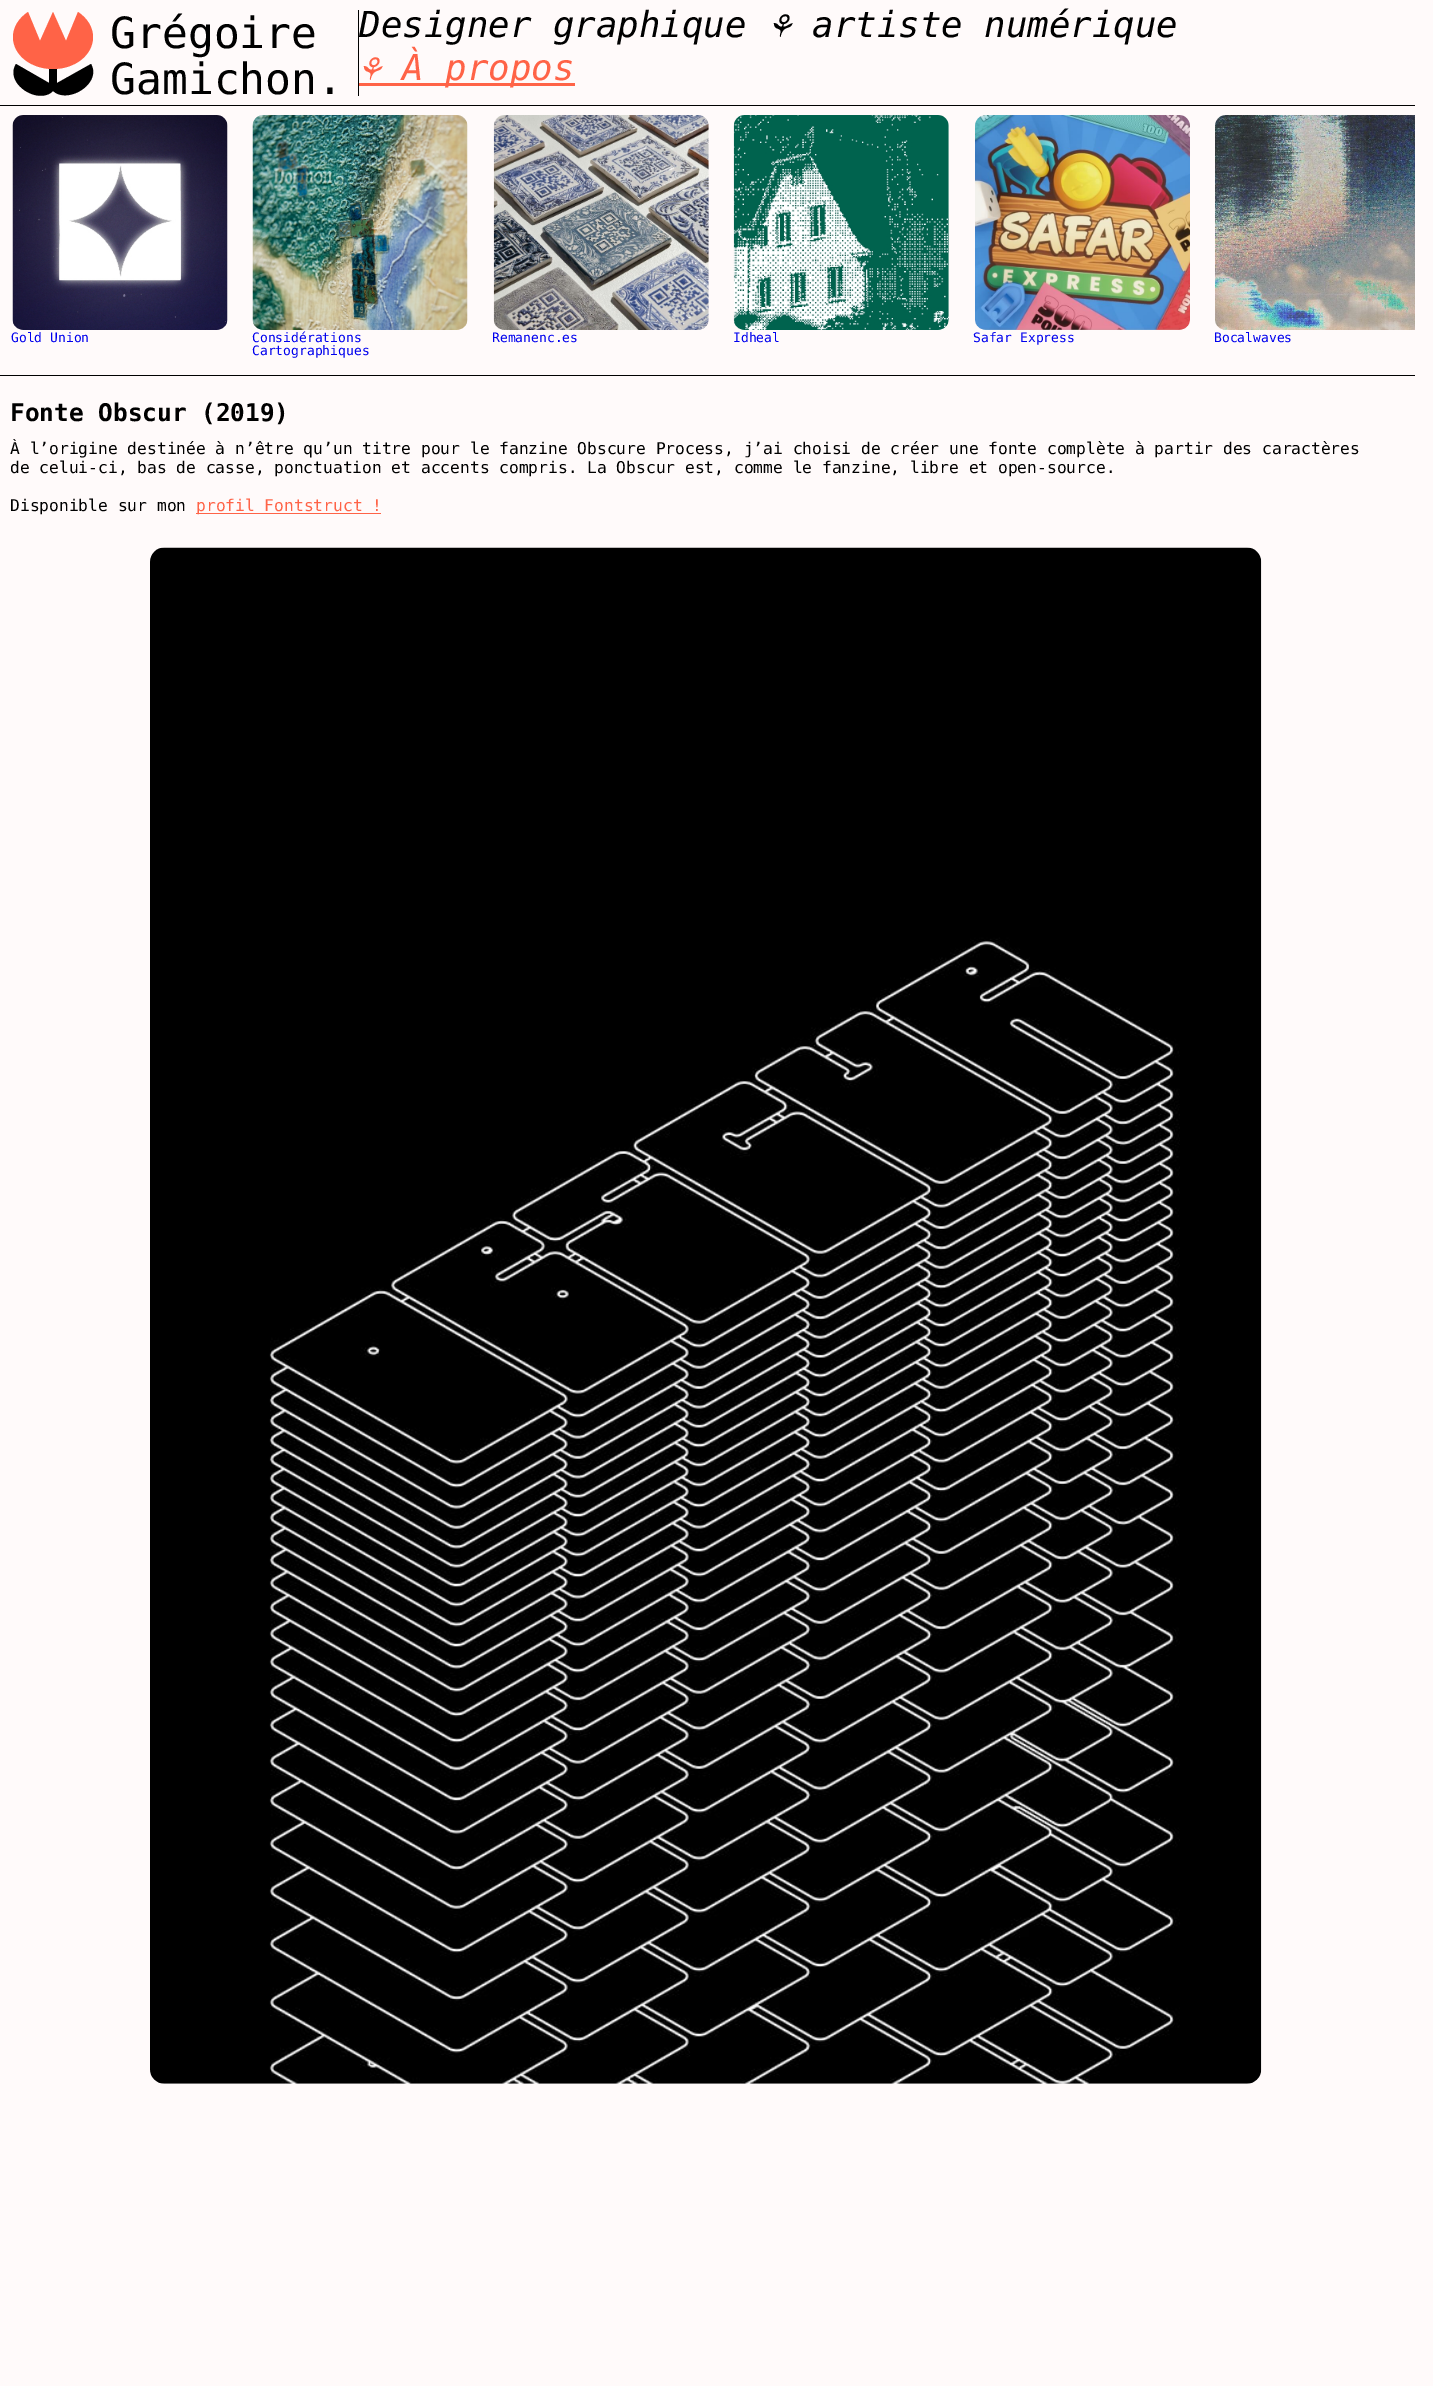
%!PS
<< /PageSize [1433 2386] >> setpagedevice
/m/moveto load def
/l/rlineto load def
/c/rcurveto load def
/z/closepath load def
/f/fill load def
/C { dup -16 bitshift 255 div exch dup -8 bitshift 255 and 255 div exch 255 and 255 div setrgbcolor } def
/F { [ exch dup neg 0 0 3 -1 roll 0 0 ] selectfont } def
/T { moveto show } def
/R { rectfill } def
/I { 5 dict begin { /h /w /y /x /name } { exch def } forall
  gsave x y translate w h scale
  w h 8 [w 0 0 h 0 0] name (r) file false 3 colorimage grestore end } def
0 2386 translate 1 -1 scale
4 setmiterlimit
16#FFFAFA C
0 0 1433 2386 R
16#000000 C
358 10 1 86 R
49 66 8 21 R
16#FF6347 C
78 12 m -12 29 l -13 -29 l -13 29 l -12 -29 l -9 6 -15 15 -15 25 c 0 18 18 32 40 32 c 22 0 40 -14 40 -32 c 0 -10 -6 -19 -15 -25 c z f
16#000000 C
91 64 m 12 21 -29 44 -41 23 c z f
16 64 m -13 21 28 45 40 23 c z f
/DejaVuSansMono-Regular 43 F
(Grégoire) 110 48 T
(Gamichon.) 110 94 T
/DejaVuSansMono-Italic 35.75 F
(Designer graphique) 359 37 T
/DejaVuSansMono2-Italic 35.75 F
(⚘) 769 37 T
/DejaVuSansMono-Italic 35.75 F
(artiste numérique) 812 37 T
/DejaVuSansMono2-Italic 35.75 F
16#FF6347 C
(⚘) 359 80 T
359 83 216 3 R
/DejaVuSansMono-Italic 35.75 F
(À propos) 402 80 T
16#000000 C
0 105 1415 1 R
0 375 1415 1 R
(1.rgb) 12 115 216 215 I
/DejaVuSansMono-Regular 13 F
16#0000EE C
(Gold Union) 11 342 T
(2.rgb) 252 115 216 215 I
(Considérations) 252 342 T
(Cartographiques) 252 355 T
(3.rgb) 493 115 216 215 I
(Remanenc.es) 492 342 T
(4.rgb) 733 115 216 215 I
(Idheal) 733 342 T
(5.rgb) 975 115 215 215 I
(Safar Express) 973 342 T
(6.rgb) 1215 115 200 215 I
(Bocalwaves) 1214 342 T
/DejaVuSansMono-Bold 24.4 F
16#000000 C
(Fonte Obscur \(2019\)) 10 421 T
/DejaVuSansMono-Regular 16.25 F
(À l’origine destinée à n’être qu’un titre pour le fanzine Obscure Process, j’ai choisi de créer une fonte complète à partir des caractères) 10 454 T
(de celui-ci, bas de casse, ponctuation et accents compris. La Obscur est, comme le fanzine, libre et open-source.) 10 473 T
(Disponible sur mon) 10 511 T
16#FF6347 C
196 513 185 1 R
(profil Fontstruct !) 196 511 T
(7.rgb) 150 547 1112 1537 I
showpage
